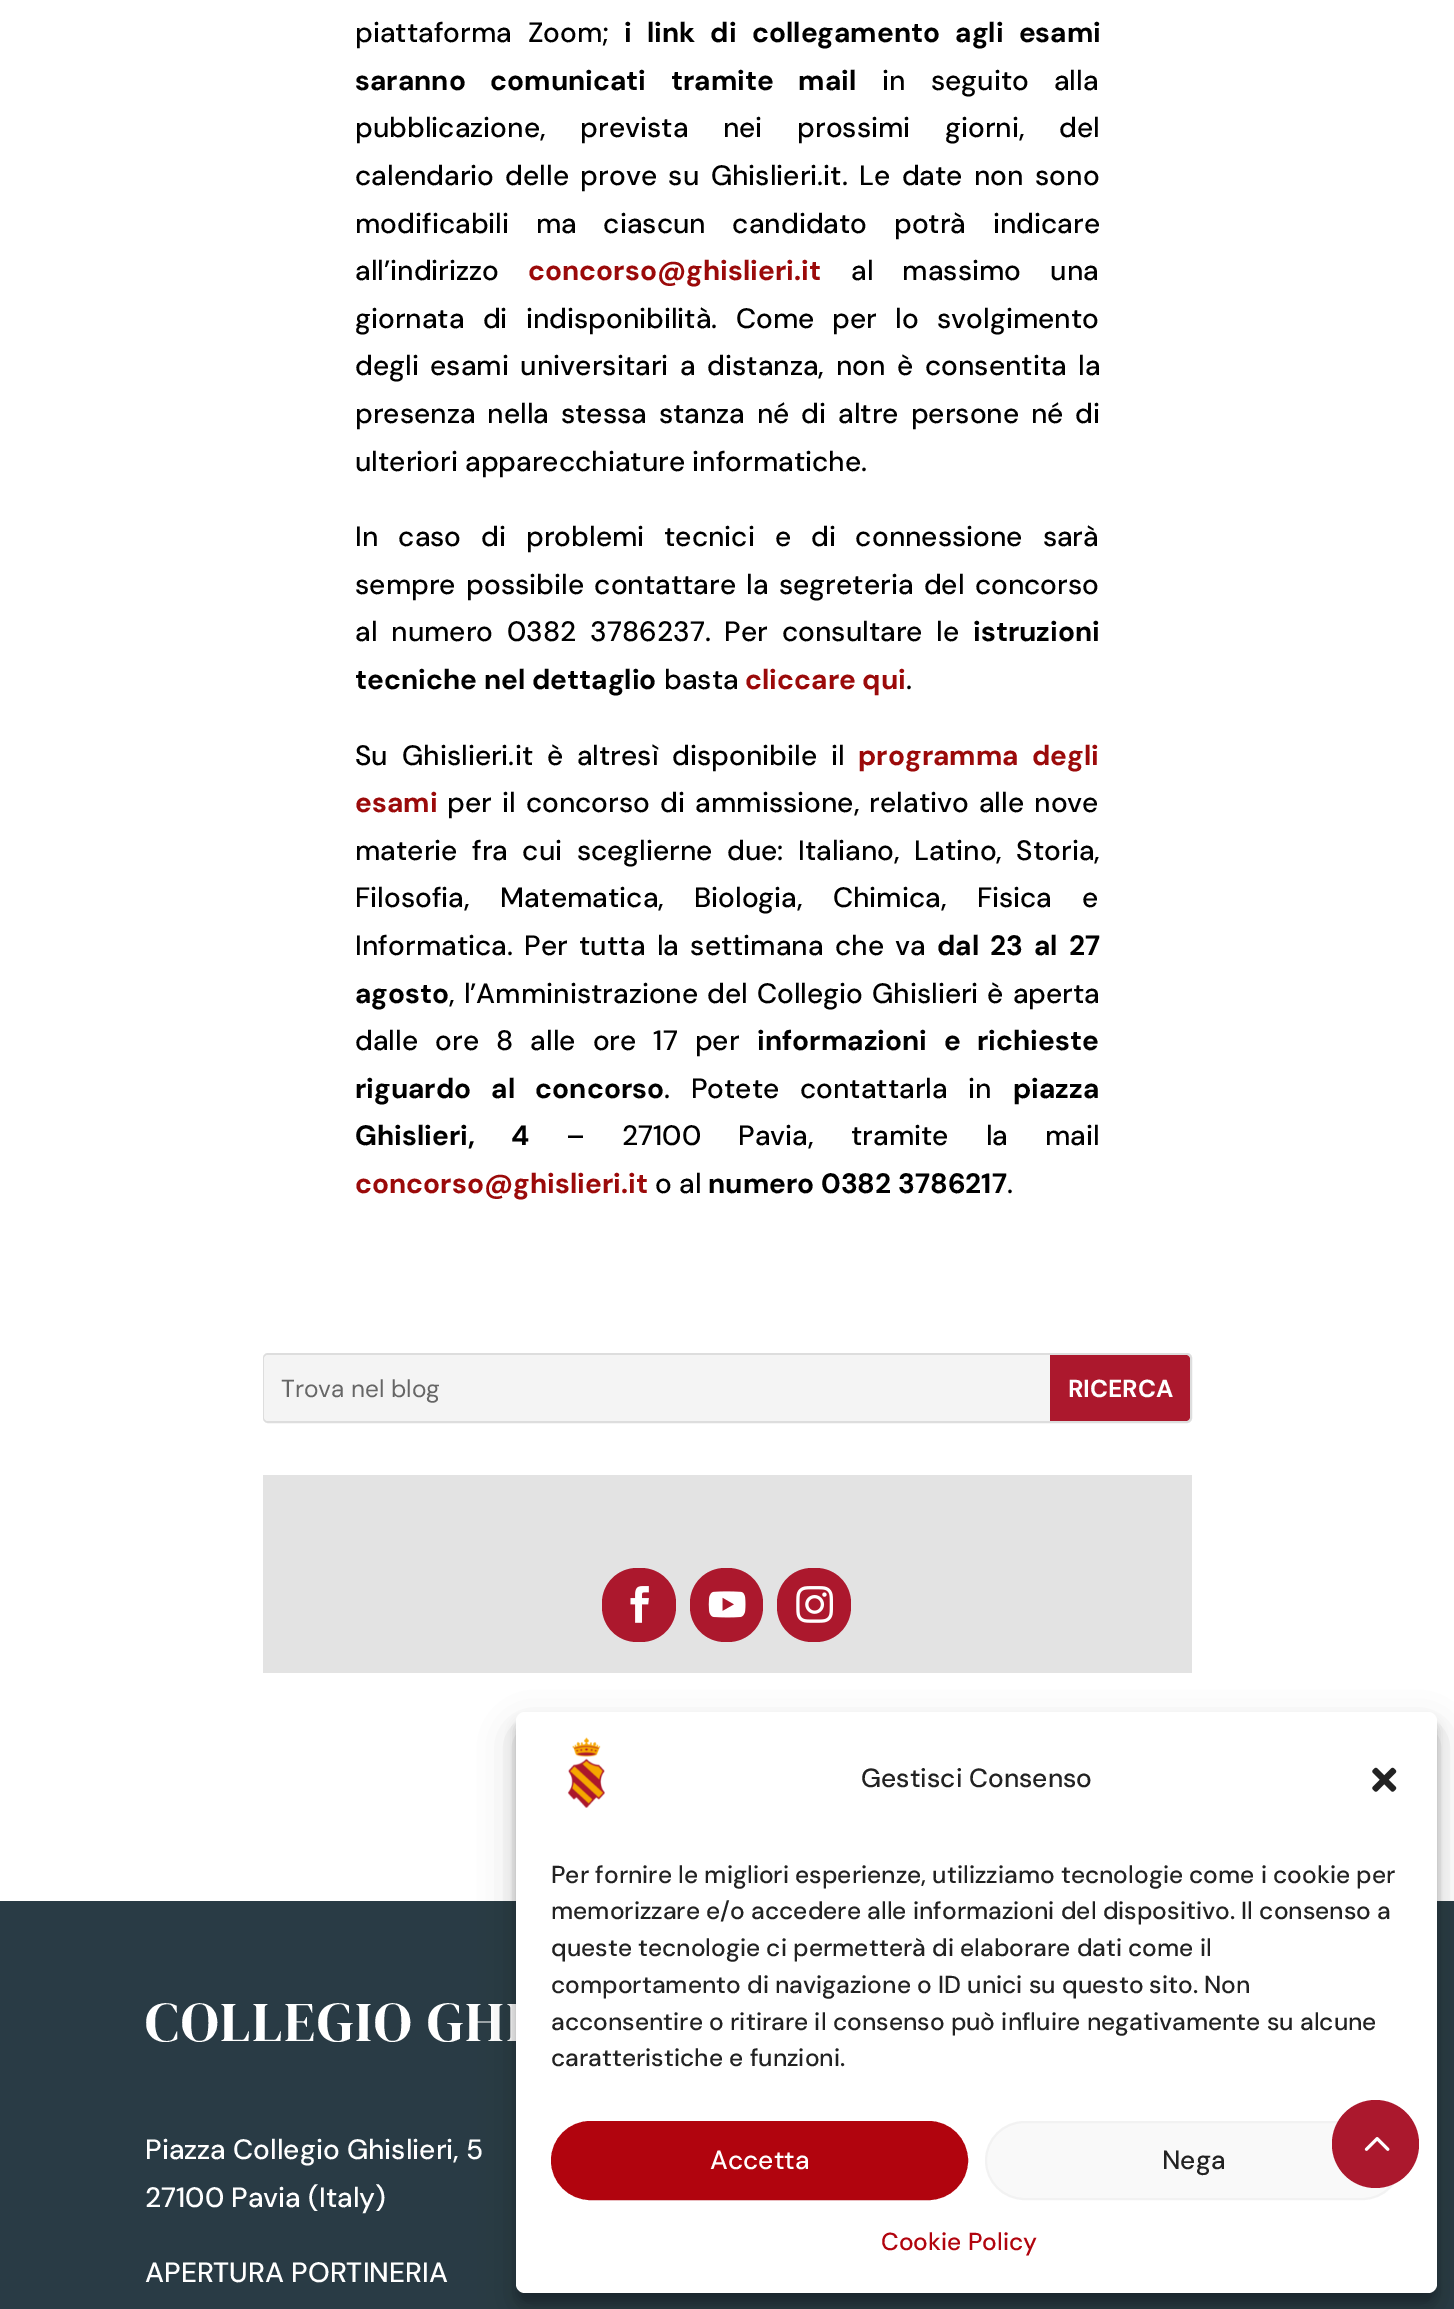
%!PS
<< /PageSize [1454 2309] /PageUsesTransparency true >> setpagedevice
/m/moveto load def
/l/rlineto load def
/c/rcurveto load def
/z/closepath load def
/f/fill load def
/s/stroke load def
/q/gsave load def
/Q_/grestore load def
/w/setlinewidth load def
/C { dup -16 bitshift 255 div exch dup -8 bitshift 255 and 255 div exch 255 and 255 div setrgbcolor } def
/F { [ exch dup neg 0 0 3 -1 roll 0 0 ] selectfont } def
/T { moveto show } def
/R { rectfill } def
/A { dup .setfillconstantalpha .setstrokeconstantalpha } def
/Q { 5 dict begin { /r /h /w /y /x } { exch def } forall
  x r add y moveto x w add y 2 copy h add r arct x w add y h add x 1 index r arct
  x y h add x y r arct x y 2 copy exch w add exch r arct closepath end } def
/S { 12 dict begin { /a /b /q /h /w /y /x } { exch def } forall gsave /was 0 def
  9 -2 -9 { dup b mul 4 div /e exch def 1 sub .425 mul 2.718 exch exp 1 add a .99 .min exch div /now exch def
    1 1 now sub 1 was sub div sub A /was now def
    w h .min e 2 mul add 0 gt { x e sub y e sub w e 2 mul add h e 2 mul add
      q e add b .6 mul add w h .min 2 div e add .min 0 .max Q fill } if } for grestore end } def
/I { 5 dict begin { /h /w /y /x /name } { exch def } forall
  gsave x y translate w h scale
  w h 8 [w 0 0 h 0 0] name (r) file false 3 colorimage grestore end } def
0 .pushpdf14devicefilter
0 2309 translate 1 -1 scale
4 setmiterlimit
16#FFFFFF C
0 0 1454 2309 R
/DMSans-Medium 28 F
16#000000 C
355 42 m 8.5 0 32 (piattaforma Zoom;) widthshow
/DMSans-Bold 28 F
624 42 m 8.5 0 32 (i link di collegamento agli esami) widthshow
355 90 m 18 0 32 (saranno comunicati tramite mail) widthshow
/DMSans-Medium 28 F
882 90 m 18 0 32 (in seguito alla) widthshow
355 137 m 27.5 0 32 (pubblicazione, prevista nei prossimi giorni, del) widthshow
355 185 m 4.25 0 32 (calendario delle prove su Ghislieri.it. Le date non sono) widthshow
355 233 m 19.5 0 32 (modificabili ma ciascun candidato potrà indicare) widthshow
(all’indirizzo) 355 280 T
/DMSans-Bold 28 F
16#9B0A0A C
(concorso@ghislieri.it) 528 280 T
/DMSans-Medium 28 F
16#000000 C
851 280 m 22 0 32 (al massimo una) widthshow
355 328 m 11 0 32 (giornata di indisponibilità. Come per lo svolgimento) widthshow
355 375 m 4.5 0 32 (degli esami universitari a distanza, non è consentita la) widthshow
355 423 m 4.75 0 32 (presenza nella stessa stanza né di altre persone né di) widthshow
(ulteriori apparecchiature informatiche.) 355 471 T
355 546 m 12.75 0 32 (In caso di problemi tecnici e di connessione sarà) widthshow
355 594 m 3.25 0 32 (sempre possibile contattare la segreteria del concorso) widthshow
355 641 m 6.75 0 32 (al numero 0382 3786237. Per consultare le) widthshow
/DMSans-Bold 28 F
(istruzioni) 973 641 T
(tecniche nel dettaglio) 355 689 T
/DMSans-Medium 28 F
(basta) 664 689 T
/DMSans-Bold 28 F
16#9B0A0A C
(cliccare qui) 745 689 T
/DMSans-Medium 28 F
16#000000 C
(.) 906 689 T
355 765 m 6.75 0 32 (Su Ghislieri.it è altresì disponibile il) widthshow
/DMSans-Bold 28 F
16#9B0A0A C
858 765 m 6.75 0 32 (programma degli) widthshow
(esami) 355 812 T
/DMSans-Medium 28 F
16#000000 C
447 812 m 3 0 32 (per il concorso di ammissione, relativo alle nove) widthshow
355 860 m 7.25 0 32 (materie fra cui sceglierne due: Italiano, Latino, Storia,) widthshow
355 907 m 23 0 32 (Filosofia, Matematica, Biologia, Chimica, Fisica e) widthshow
355 955 m 4.25 0 32 (Informatica. Per tutta la settimana che va) widthshow
/DMSans-Bold 28 F
937 955 m 4.25 0 32 (dal 23 al 27) widthshow
(agosto) 355 1003 T
/DMSans-Medium 28 F
449 1003 m 1.75 0 32 (, l’Amministrazione del Collegio Ghislieri è aperta) widthshow
355 1050 m 10 0 32 (dalle ore 8 alle ore 17 per) widthshow
/DMSans-Bold 28 F
757 1050 m 10 0 32 (informazioni e richieste) widthshow
355 1098 m 13.5 0 32 (riguardo al concorso) widthshow
/DMSans-Medium 28 F
664 1098 m 13.5 0 32 (. Potete contattarla in) widthshow
/DMSans-Bold 28 F
(piazza) 1013 1098 T
355 1145 m 30 0 32 (Ghislieri, 4) widthshow
/DMSans-Medium 28 F
566 1145 m 30 0 32 (– 27100 Pavia, tramite la mail) widthshow
/DMSans-Bold 28 F
16#9B0A0A C
(concorso@ghislieri.it) 355 1193 T
/DMSans-Medium 28 F
16#000000 C
(o al) 655 1193 T
/DMSans-Bold 28 F
(numero 0382 3786217) 708 1193 T
/DMSans-Medium 28 F
(.) 1007 1193 T
16#DDDDDD C
2 w
264 1354 927 68 4 Q s
16#F4F4F4 C
264 1355 926 66 4 Q f
/DMSans-Regular 24.5 F
16#666666 C
(Trova nel blog) 281 1397 T
16#AC182D C
1050 1355 m 136 0 l 2 0 4 2 4 4 c 0 58 l 0 2 -2 4 -4 4 c -136 0 l z f
/DMSans-Bold 24.5 F
16#FFFFFF C
(RICERCA) 1068 1397 T
16#E3E3E3 C
263 1475 929 198 R
16#AC182D C
602 1568 74 74 35 Q f
(1.rgb) 630 1586 19 37 I
690 1568 73 74 35 Q f
(2.rgb) 708 1591 38 27 I
777 1568 74 74 35 Q f
(3.rgb) 796 1586 37 37 I
16#293B45 C
0 1901 1454 408 R
/DMSerifDisplay-Regular 56 F
16#FFFFFF C
145 2041 m 1.75 0 (COLLEGIO GHI) ashow
/DMSans-Medium 28 F
(Piazza Collegio Ghislieri, 5) 145 2159 T
(27100 Pavia \(Italy\)) 145 2207 T
(APERTURA PORTINERIA) 145 2282 T
16#000000 C
516 1722 921 581 9 5 .23 S
516 1729 921 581 9 17.5 .19 S
16#FFFFFF C
516 1712 921 581 9 Q f
(4.rgb) 567 1737 38 71 I
/DMSans-Medium 26.25 F
16#222222 C
(Gestisci Consenso) 861 1787 T
(5.rgb) 1372 1767 25 25 I
/DMSans-Medium 24.5 F
(Per fornire le migliori esperienze, utilizziamo tecnologie come i cookie per) 551 1883 T
(memorizzare e/o accedere alle informazioni del dispositivo. Il consenso a) 551 1919 T
(queste tecnologie ci permetterà di elaborare dati come il) 551 1956 T
(comportamento di navigazione o ID unici su questo sito. Non) 551 1993 T
(acconsentire o ritirare il consenso può influire negativamente su alcune) 551 2030 T
(caratteristiche e funzioni.) 551 2066 T
16#B1040E C
552 2122 415 77 38.5 Q q f Q_
s
/DMSans-Medium 26.25 F
16#FFFFFF C
(Accetta) 710 2169 T
16#F9F9F9 C
986 2122 415 77 38.5 Q q f Q_
16#F2F2F2 C
s
16#222222 C
(Nega) 1162 2169 T
/DMSans-Medium 24.5 F
16#B1040E C
(Cookie Policy) 881 2250 T
16#AB182D C
1332 2100 87 88 43.5 Q f
(6.rgb) 1364 2137 26 14 I
.poppdf14devicefilter showpage
